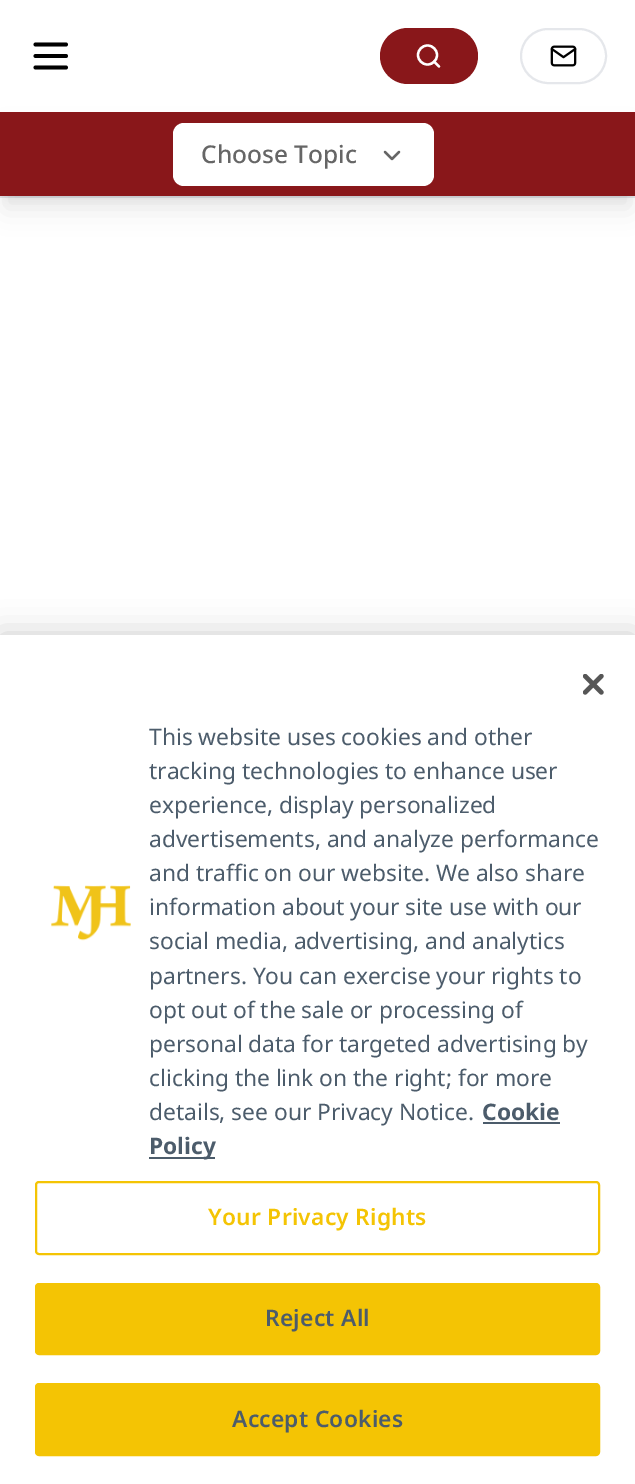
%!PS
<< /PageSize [635 1484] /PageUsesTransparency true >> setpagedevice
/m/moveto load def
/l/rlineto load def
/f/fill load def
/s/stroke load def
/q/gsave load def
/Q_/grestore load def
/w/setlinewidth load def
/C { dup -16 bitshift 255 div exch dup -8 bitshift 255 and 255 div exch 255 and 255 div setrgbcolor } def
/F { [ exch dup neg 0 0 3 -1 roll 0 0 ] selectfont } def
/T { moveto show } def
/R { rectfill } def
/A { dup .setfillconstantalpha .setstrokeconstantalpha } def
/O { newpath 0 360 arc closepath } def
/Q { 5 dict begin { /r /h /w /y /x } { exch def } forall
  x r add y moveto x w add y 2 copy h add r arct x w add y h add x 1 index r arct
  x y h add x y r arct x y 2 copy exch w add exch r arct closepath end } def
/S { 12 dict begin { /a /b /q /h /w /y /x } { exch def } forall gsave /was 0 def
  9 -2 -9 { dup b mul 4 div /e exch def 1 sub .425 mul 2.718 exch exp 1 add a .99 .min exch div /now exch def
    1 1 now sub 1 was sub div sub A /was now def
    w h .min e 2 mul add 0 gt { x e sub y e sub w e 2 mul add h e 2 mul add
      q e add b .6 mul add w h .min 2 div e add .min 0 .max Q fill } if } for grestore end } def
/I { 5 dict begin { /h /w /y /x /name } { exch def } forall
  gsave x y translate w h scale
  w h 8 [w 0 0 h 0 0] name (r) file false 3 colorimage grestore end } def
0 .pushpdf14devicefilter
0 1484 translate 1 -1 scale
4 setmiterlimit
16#FFFFFF C
0 0 635 1484 R
16#E5E7EB C
0 196 635 2 R
16#000000 C
3.8 w
1 setlinecap
1 setlinejoin
35.5 44.5 m 30.5 0 l 35.5 56 m 30.5 0 l 35.5 67.5 m 30.5 0 l s
16#89171A C
380 28 98 56 28 Q f
16#FFFFFF C
2.3 w
0 setlinecap
0 setlinejoin
427.5 55 9.5 O s
1 setlinecap
1 setlinejoin
439 66.5 m -5 -5 l s
16#E5E7EB C
2 w
0 setlinecap
0 setlinejoin
521 29 85 54 27 Q s
(1.rgb) 550 45 27 22 I
16#000000 C
7 126 621 70 0 5 .1 S
5 135 625 73 0 13 .1 S
16#89171A C
0 112 635 84 R
16#FFFFFF C
173 123 261 63 11 Q f
/NotoSans-Medium 24.5 F
16#666666 C
(Choose Topic) 201 163 T
2.3 w
1 setlinecap
1 setlinejoin
385 152 m 7 7 l 7 -7 l s
16#000000 C
0 635 635 849 0 16 .2 S
16#FFFFFF C
0 635 635 849 R
(2.rgb) 583 674 21 21 I
(3.rgb) 51 885 80 56 I
/NotoSans-Regular 22.75 F
16#4C5C6B C
(This website uses cookies and other) 149 745 T
(tracking technologies to enhance user) 149 779 T
(experience, display personalized) 149 813 T
(advertisements, and analyze performance) 149 847 T
(and traffic on our website. We also share) 149 881 T
(information about your site use with our) 149 915 T
(social media, advertising, and analytics) 149 949 T
(partners. You can exercise your rights to) 149 984 T
(opt out of the sale or processing of) 149 1018 T
(personal data for targeted advertising by) 149 1052 T
(clicking the link on the right; for more) 149 1086 T
(details, see our Privacy Notice.) 149 1120 T
/NotoSans-Bold 22.75 F
(Cookie) 482 1120 T
483 1122 77 2 R
149 1157 66 2 R
(Policy) 149 1154 T
16#F4C404 C
2 w
0 setlinecap
0 setlinejoin
36 1182 563 72 3 Q s
/NotoSans-SemiBold 22.75 F
208 1225 m .25 0 (Your Privacy Rights) ashow
36 1284 563 70 3 Q q f Q_
s
16#4C5C6B C
265 1326 m .25 0 (Reject All) ashow
16#F4C404 C
36 1384 563 71 3 Q q f Q_
s
16#4C5C6B C
232 1427 m .25 0 (Accept Cookies) ashow
.poppdf14devicefilter showpage
